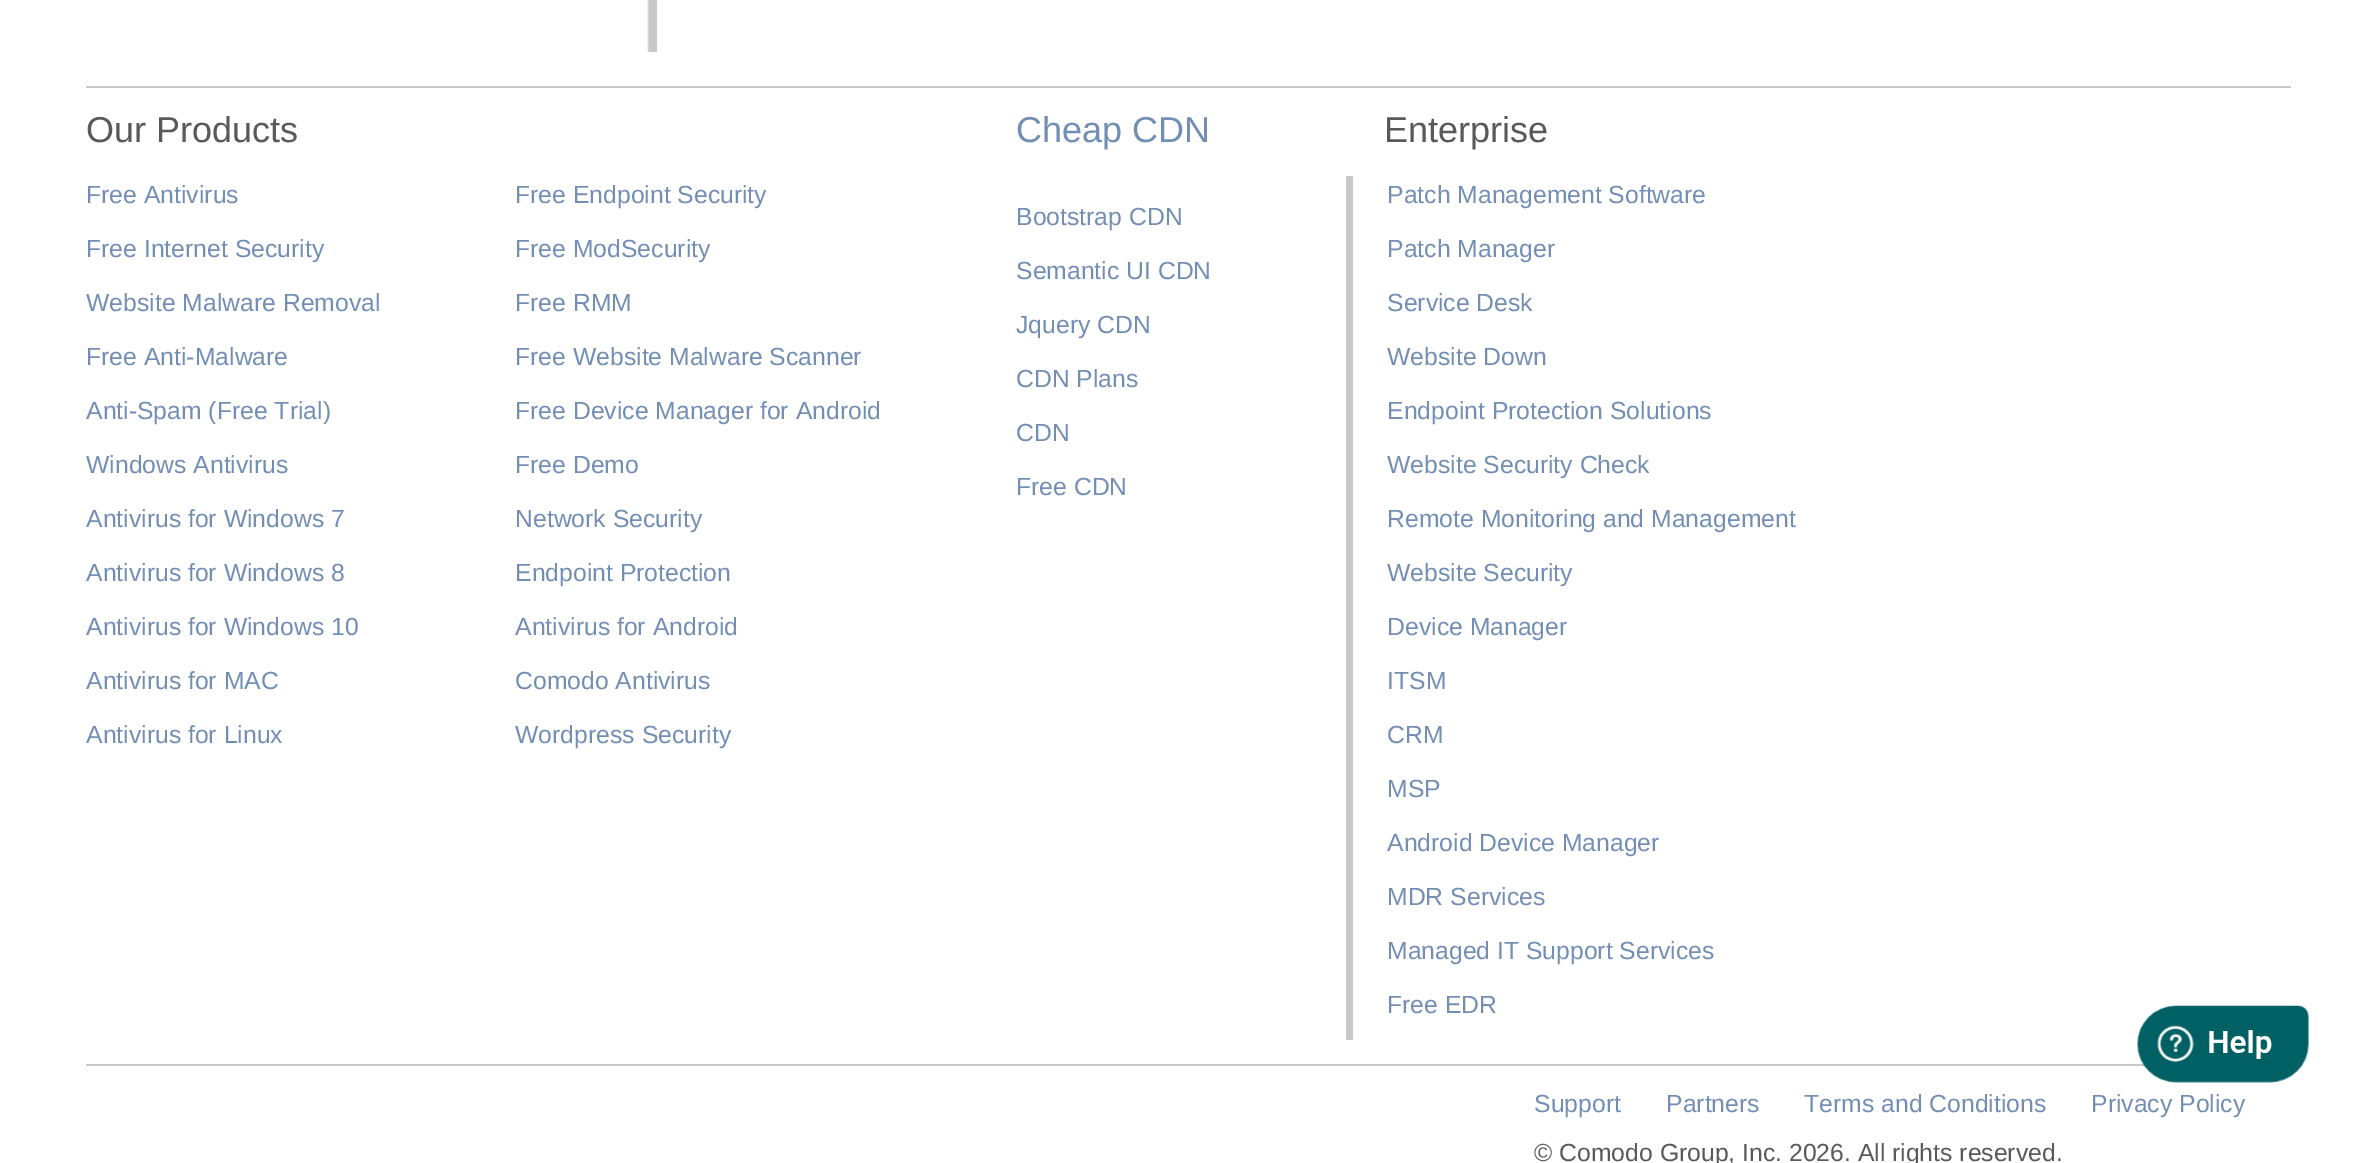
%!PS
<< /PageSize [2375 1163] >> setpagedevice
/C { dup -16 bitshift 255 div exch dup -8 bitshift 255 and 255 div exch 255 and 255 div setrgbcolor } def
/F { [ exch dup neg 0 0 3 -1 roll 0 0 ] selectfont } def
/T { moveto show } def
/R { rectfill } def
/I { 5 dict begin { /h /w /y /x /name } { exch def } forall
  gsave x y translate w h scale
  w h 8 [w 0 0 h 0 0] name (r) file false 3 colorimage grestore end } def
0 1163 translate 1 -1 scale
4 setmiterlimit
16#FFFFFF C
0 0 2375 1163 R
(1.rgb) 647 0 10 52 I
16#C8C8C8 C
86 86 2205 2 R
/LiberationSans-Regular 36 F
16#595959 C
(Our Products) 86 142 T
/LiberationSans-Regular 24.75 F
16#728EB5 C
(Free Antivirus) 86 203 T
(Free Internet Security) 86 257 T
(Website Malware Removal) 86 311 T
(Free Anti-Malware) 86 365 T
(Anti-Spam \(Free Trial\)) 86 419 T
(Windows Antivirus) 86 473 T
(Antivirus for Windows 7) 86 527 T
(Antivirus for Windows 8) 86 581 T
(Antivirus for Windows 10) 86 635 T
(Antivirus for MAC) 86 689 T
(Antivirus for Linux) 86 743 T
(Free Endpoint Security) 515 203 T
(Free ModSecurity) 515 257 T
(Free RMM) 515 311 T
(Free Website Malware Scanner) 515 365 T
(Free Device Manager for Android) 515 419 T
(Free Demo) 515 473 T
(Network Security) 515 527 T
(Endpoint Protection) 515 581 T
(Antivirus for Android) 515 635 T
(Comodo Antivirus) 515 689 T
(Wordpress Security) 515 743 T
/LiberationSans-Regular 36 F
(Cheap CDN) 1016 142 T
/LiberationSans-Regular 24.75 F
(Bootstrap CDN) 1016 225 T
(Semantic UI CDN) 1016 279 T
(Jquery CDN) 1016 333 T
(CDN Plans) 1016 387 T
(CDN) 1016 441 T
(Free CDN) 1016 495 T
/LiberationSans-Regular 36 F
16#595959 C
(Enterprise) 1384 142 T
16#C8C8C8 C
1346 176 7 864 R
/LiberationSans-Regular 24.75 F
16#728EB5 C
(Patch Management Software) 1387 203 T
(Patch Manager) 1387 257 T
(Service Desk) 1387 311 T
(Website Down) 1387 365 T
(Endpoint Protection Solutions) 1387 419 T
(Website Security Check) 1387 473 T
(Remote Monitoring and Management) 1387 527 T
(Website Security) 1387 581 T
(Device Manager) 1387 635 T
(ITSM) 1387 689 T
(CRM) 1387 743 T
(MSP) 1387 797 T
(Android Device Manager) 1387 851 T
(MDR Services) 1387 905 T
(Managed IT Support Services) 1387 959 T
(Free EDR) 1387 1013 T
16#C8C8C8 C
86 1064 2060 2 R
16#728EB5 C
(Support) 1534 1112 T
(Partners) 1666 1112 T
(Terms and Conditions) 1804 1112 T
(Privacy Policy) 2091 1112 T
16#595959 C
(© Comodo Group, Inc. 2026. All rights reserved.) 1534 1161 T
(2.rgb) 2137 1005 172 78 I
showpage
